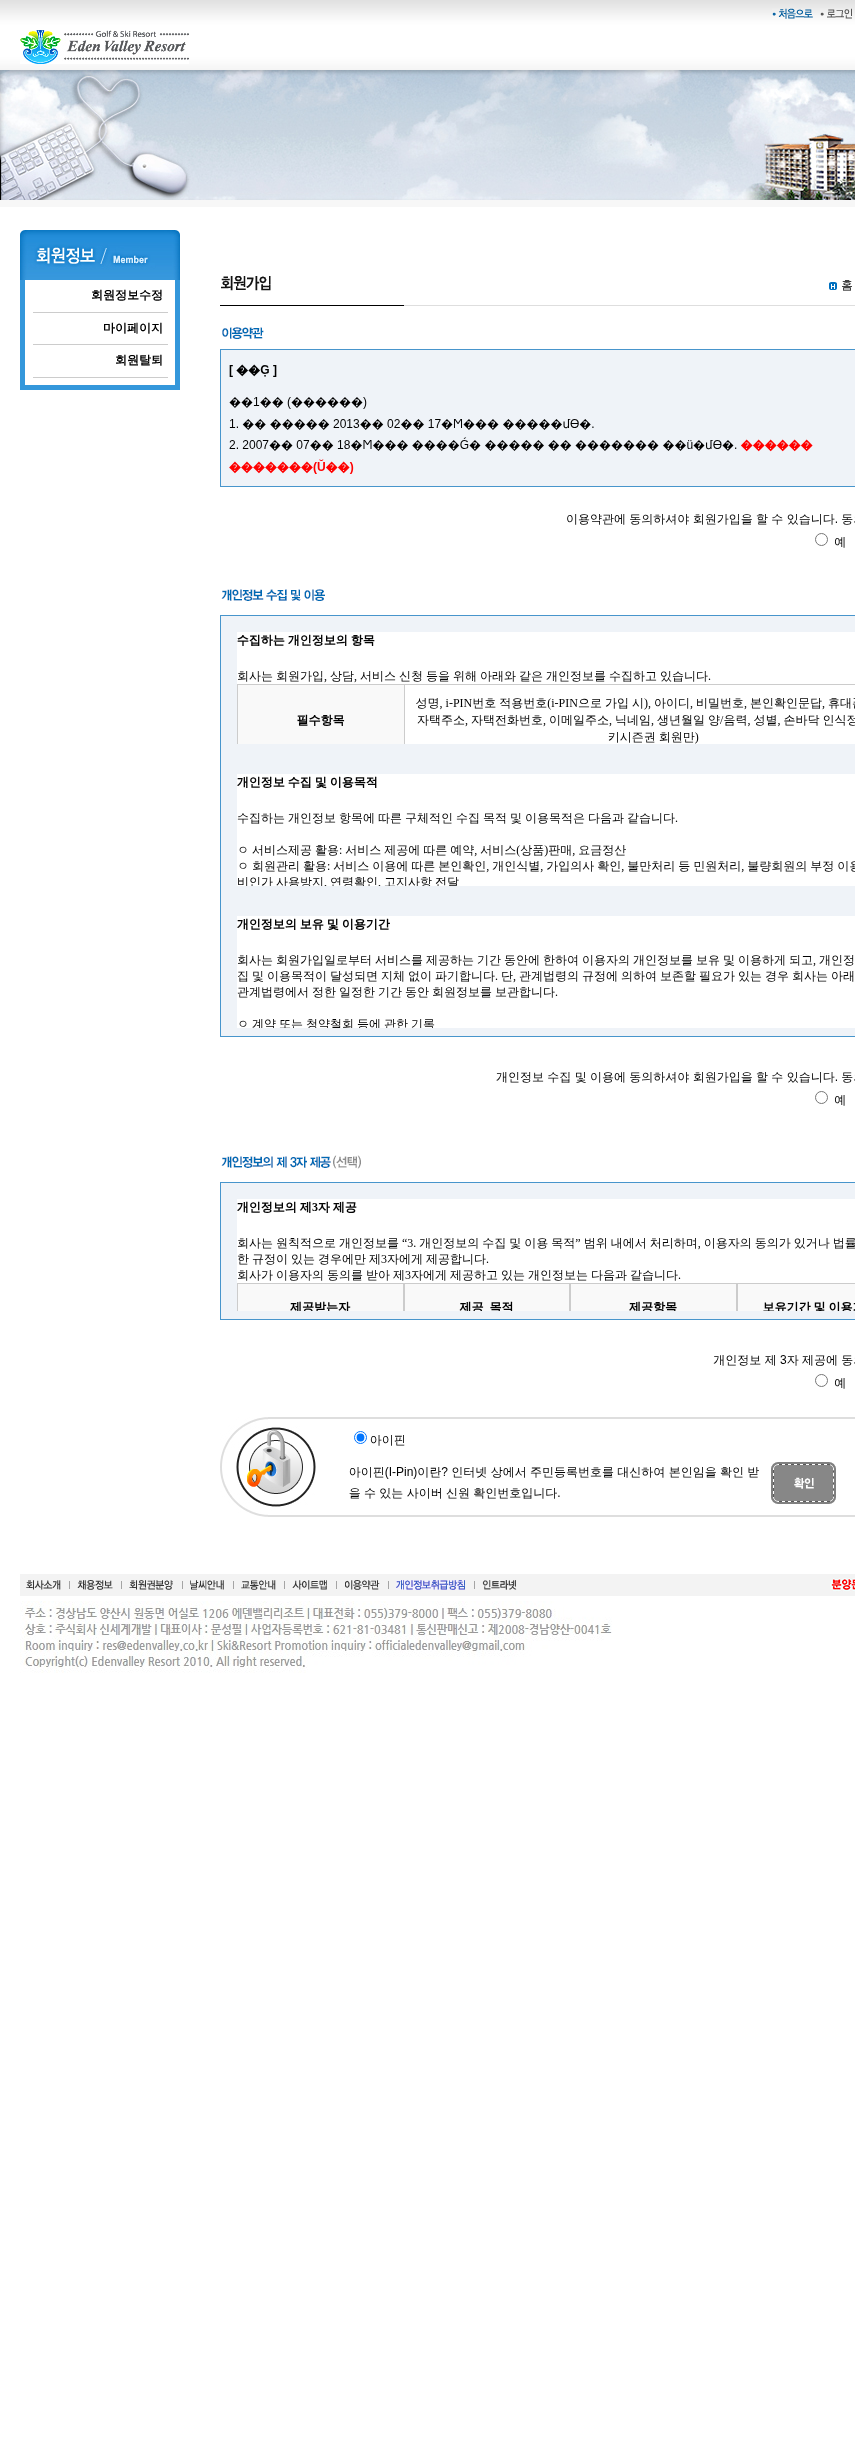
%!PS
<< /PageSize [855 2437] >> setpagedevice
/C { dup -16 bitshift 255 div exch dup -8 bitshift 255 and 255 div exch 255 and 255 div setrgbcolor } def
/F { [ exch dup neg 0 0 3 -1 roll 0 0 ] selectfont } def
/T { moveto show } def
/R { rectfill } def
/I { 5 dict begin { /h /w /y /x /name } { exch def } forall
  gsave x y translate w h scale
  w h 8 [w 0 0 h 0 0] name (r) file false 3 colorimage grestore end } def
0 2437 translate 1 -1 scale
4 setmiterlimit
16#FFFFFF C
0 0 855 2437 R
(1.rgb) 0 0 855 70 I
(2.rgb) 772 8 41 11 I
(3.rgb) 820 8 32 11 I
(4.rgb) 20 30 169 34 I
(5.rgb) 0 70 855 130 I
16#F7F7F7 C
0 200 855 7 R
(6.rgb) 221 276 50 15 I
(7.rgb) 829 282 8 8 I
/WenQuanYiZenHei-Medium 12 F
16#000000 C
(홈) 841 289 T
220 305 184 1 R
16#DEDEDE C
404 305 451 1 R
(8.rgb) 220 327 635 1190 I
(9.rgb) 20 230 160 50 I
16#3497DB C
175 280 5 105 R
20 280 5 105 R
16#CCCCCC C
33 312 135 1 R
/WenQuanYiZenHei-Bold 12 F
16#000000 C
(회원정보수정) 91 299 T
16#CCCCCC C
33 344 135 1 R
16#000000 C
(마이페이지) 103 332 T
16#CCCCCC C
33 377 135 1 R
16#000000 C
(회원탈퇴) 115 364 T
16#3497DB C
20 385 160 5 R
16#F3F3F3 C
20 1574 835 22 R
(10.rgb) 26 1580 491 10 I
(11.rgb) 830 1578 25 14 I
(12.rgb) 20 1601 592 72 I
showpage
